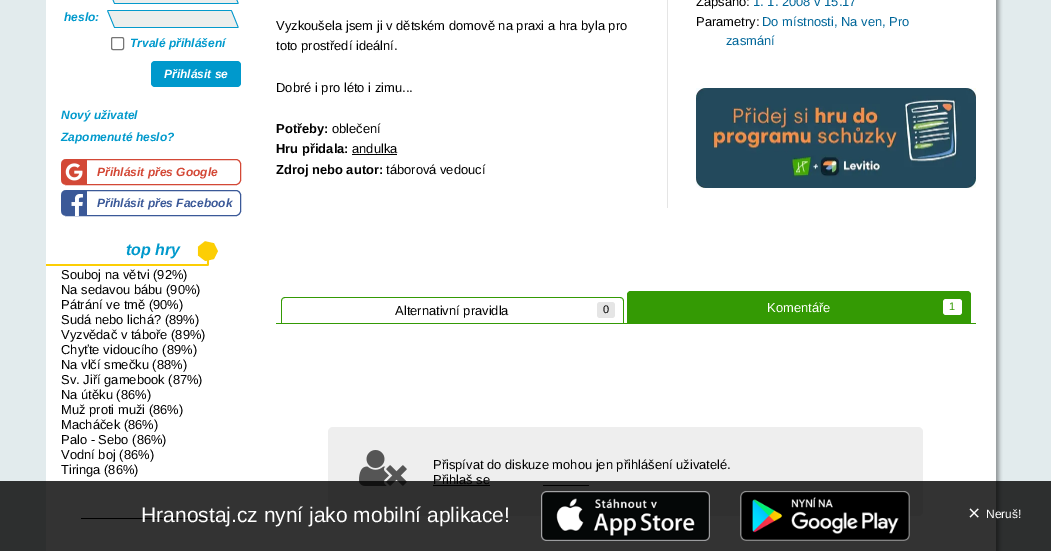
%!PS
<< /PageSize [1051 551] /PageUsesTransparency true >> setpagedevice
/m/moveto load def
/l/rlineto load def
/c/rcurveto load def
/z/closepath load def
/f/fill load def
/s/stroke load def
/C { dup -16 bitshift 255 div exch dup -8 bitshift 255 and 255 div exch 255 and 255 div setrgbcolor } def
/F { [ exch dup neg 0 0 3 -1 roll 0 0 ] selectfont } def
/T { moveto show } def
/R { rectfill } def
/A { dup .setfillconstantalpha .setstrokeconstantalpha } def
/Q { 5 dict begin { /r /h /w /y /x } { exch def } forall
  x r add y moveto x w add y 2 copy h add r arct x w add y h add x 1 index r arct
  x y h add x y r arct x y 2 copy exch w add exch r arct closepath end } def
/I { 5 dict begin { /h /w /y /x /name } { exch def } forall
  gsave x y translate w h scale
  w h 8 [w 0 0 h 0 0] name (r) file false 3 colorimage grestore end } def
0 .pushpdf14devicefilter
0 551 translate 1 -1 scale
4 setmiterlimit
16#E2EBED C
0 0 1051 551 R
16#FFFFFF C
46 0 950 551 R
(1.rgb) 996 0 10 551 I
(2.rgb) 112 0 127 4 I
/LiberationSans-BoldItalic 12 F
16#0099CC C
(heslo:) 64 21 T
(3.rgb) 107 10 132 18 I
16#767676 C
111.5 37.5 12 12 1.5 Q s
16#0099CC C
(Trvalé přihlášení) 130 47 T
151 61 90 26 4 Q f
16#FFFFFF C
(Přihlásit se) 164 78 T
16#0099CC C
(Nový uživatel) 61 119 T
(Zapomenuté heslo?) 61 141 T
16#D34836 C
61.5 159.5 179 25 4.5 Q s
16#FFFFFF C
66 159 m 21 0 l 0 26 l -21 0 l -3 0 -5 -2 -5 -5 c 0 -16 l 0 -3 2 -5 5 -5 c z f
(4.rgb) 61 159 26 26 I
16#D34836 C
(Přihlásit přes Google) 97 176 T
16#3B5998 C
61.5 190.5 179 25 4.5 Q s
16#FFFFFF C
66 190 m 21 0 l 0 26 l -21 0 l -3 0 -5 -2 -5 -5 c 0 -16 l 0 -3 2 -5 5 -5 c z f
(5.rgb) 61 190 26 26 I
16#3B5998 C
(Přihlásit přes Facebook) 97 207 T
(6.rgb) 46 241 172 25 I
/LiberationSans-BoldItalic 16 F
16#0099CC C
(top hry) 126 255 T
/LiberationSans-Regular 12.95 F
16#000000 C
(Souboj na větvi \(92%\)) 61 279 T
(Na sedavou bábu \(90%\)) 61 294 T
(Pátrání ve tmě \(90%\)) 61 309 T
(Sudá nebo lichá? \(89%\)) 61 324 T
(Vyzvědač v táboře \(89%\)) 61 339 T
(Chyťte vidoucího \(89%\)) 61 354 T
(Na vlčí smečku \(88%\)) 61 369 T
(Sv. Jiří gamebook \(87%\)) 61 384 T
(Na útěku \(86%\)) 61 399 T
(Muž proti muži \(86%\)) 61 414 T
(Macháček \(86%\)) 61 429 T
(Palo - Sebo \(86%\)) 61 444 T
(Vodní boj \(86%\)) 61 459 T
(Tiringa \(86%\)) 61 474 T
81 518 134 1 R
(Vyzkoušela jsem ji v dětském domově na praxi a hra byla pro) 276 30 T
(toto prostředí ideální.) 276 50 T
(Dobré i pro léto i zimu...) 276 92 T
16#E5E5E5 C
667 0 1 208 R
16#000000 C
(Zapsáno:) 696 6 T
16#006699 C
(1. 1. 2008 v 15.17) 753 6 T
16#000000 C
(Parametry:) 696 26 T
16#006699 C
(Do místnosti, Na ven, Pro) 762 26 T
(zasmání) 726 45 T
(7.rgb) 696 88 280 100 I
/LiberationSans-Bold 12.95 F
16#000000 C
(Potřeby:) 276 133 T
/LiberationSans-Regular 12.95 F
(oblečení) 332 133 T
/LiberationSans-Bold 12.95 F
(Hru přidala:) 276 153 T
/LiberationSans-Regular 12.95 F
(andulka) 352 153 T
352 154 45 1 R
/LiberationSans-Bold 12.95 F
(Zdroj nebo autor:) 276 174 T
/LiberationSans-Regular 12.95 F
(táborová vedoucí) 386 174 T
16#349A04 C
276 323 700 1 R
285 297 m 335 0 l 2 0 4 2 4 4 c 0 22 l -343 0 l 0 -22 l 0 -2 2 -4 4 -4 c z 285 298 m 335 0 l 2 0 3 1 3 3 c 0 22 l -341 0 l 0 -22 l 0 -2 1 -3 3 -3 c z eofill
16#000000 C
(Alternativní pravidla) 395 315 T
16#E5E5E5 C
597 302 18 16 3 Q f
/LiberationSans-Regular 11 F
16#000000 C
(0) 603 313 T
16#349A04 C
631 291 m 336 0 l 2 0 4 2 4 4 c 0 28 l -344 0 l 0 -28 l 0 -2 2 -4 4 -4 c z f
631 291 m 336 0 l 2 0 4 2 4 4 c 0 28 l -344 0 l 0 -28 l 0 -2 2 -4 4 -4 c z 631 292 m 336 0 l 2 0 3 1 3 3 c 0 28 l -342 0 l 0 -28 l 0 -2 1 -3 3 -3 c z eofill
/LiberationSans-Regular 12.95 F
16#FFFFFF C
(Komentáře) 767 312 T
943 299 19 16 3 Q f
/LiberationSans-Regular 11 F
16#349A04 C
(1) 949 310 T
16#EEEEEE C
328 427 595 89 5 Q f
(8.rgb) 359 450 48 36 I
/LiberationSans-Regular 12.95 F
16#000000 C
(Přispívat do diskuze mohou jen přihlášení uživatelé.) 433 469 T
(Přihlaš se) 433 484 T
433 485 57 1 R
543 485 46 1 R
0.8 A
0 481 1051 70 R
/LiberationSans-Regular 21 F
1 A
16#FFFFFF C
(Hranostaj.cz nyní jako mobilní aplikace!) 141 522 T
(9.rgb) 541 491 169 50 I
(10.rgb) 740 491 170 50 I
(×) 968 520 T
/LiberationSans-Regular 12 F
(Neruš!) 986 518 T
.poppdf14devicefilter showpage
